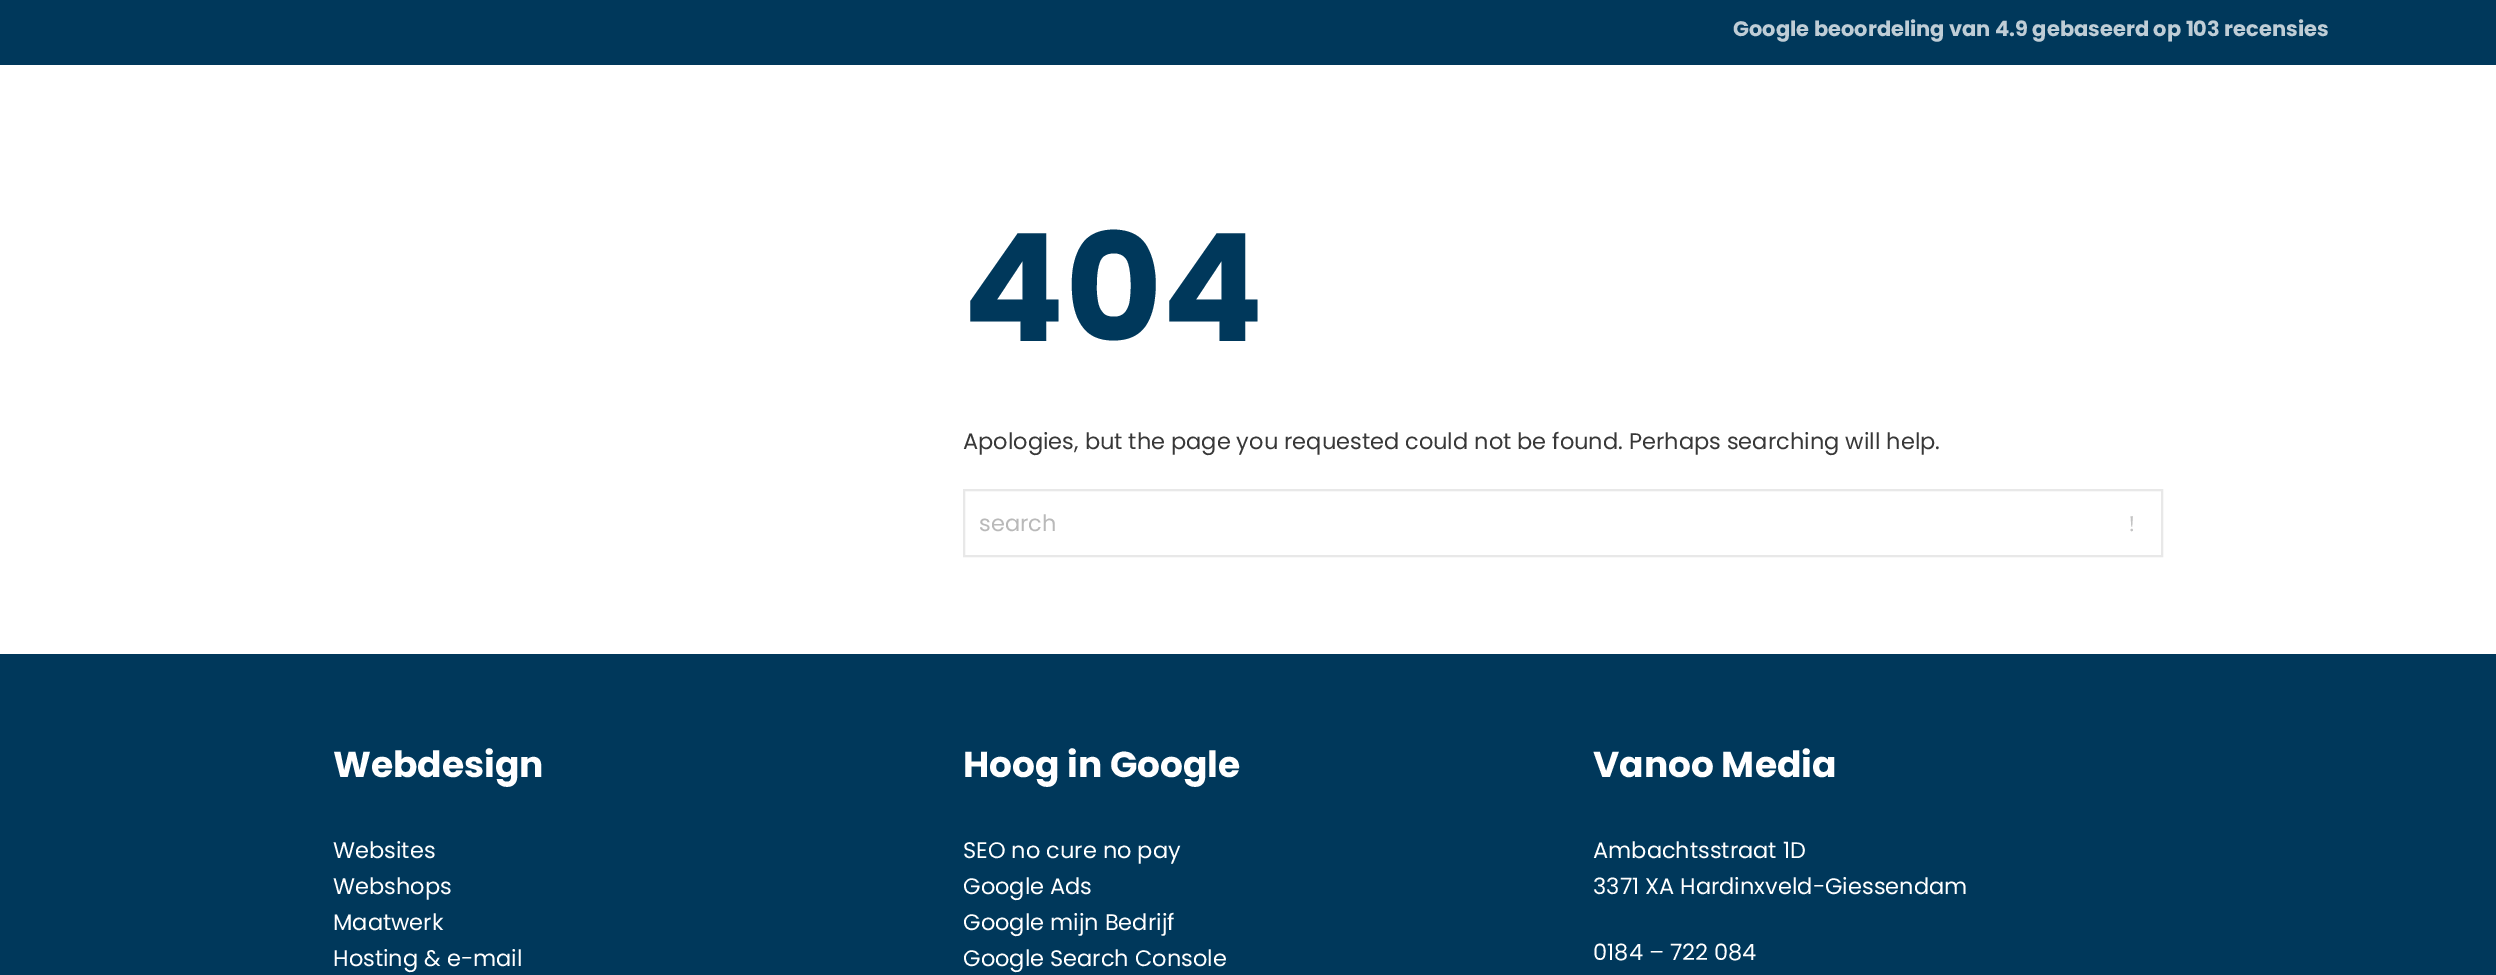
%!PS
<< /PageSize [2496 975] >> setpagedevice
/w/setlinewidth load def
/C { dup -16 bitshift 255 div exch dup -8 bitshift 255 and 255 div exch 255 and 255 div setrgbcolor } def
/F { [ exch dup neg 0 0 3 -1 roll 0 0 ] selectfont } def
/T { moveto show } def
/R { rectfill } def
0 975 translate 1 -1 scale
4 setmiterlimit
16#FFFFFF C
0 0 2496 975 R
16#00385B C
0 0 2496 65 R
/Poppins-Bold 21 F
16#BFCDD6 C
(Google beoordeling van 4.9 gebaseerd op 103 recensies) 1733 36 T
/Poppins-Bold 150 F
16#00385B C
(404) 963 341 T
/Poppins-Regular 22.5 F
16#383838 C
(Apologies, but the page you requested could not be found. Perhaps searching will help.) 963 449 T
16#E8E8E8 C
2 w
964 490 1198 66 rectstroke
16#B9B9B9 C
(search) 979 531 T
/LiberationSerif-Regular 22.5 F
16#C3C3C3 C
(!) 2128 531 T
16#00385B C
0 654 2496 321 R
/Poppins-Bold 36 F
16#FFFFFF C
(Webdesign) 333 777 T
/Poppins-Regular 22.5 F
(Websites) 333 858 T
(Webshops) 333 894 T
(Maatwerk) 333 930 T
(Hosting & e-mail) 333 966 T
/Poppins-Bold 36 F
(Hoog in Google) 963 777 T
/Poppins-Regular 22.5 F
(SEO no cure no pay) 963 858 T
(Google Ads) 963 894 T
(Google mijn Bedrijf) 963 930 T
(Google Search Console) 963 966 T
/Poppins-Bold 36 F
(Vanoo Media) 1593 777 T
/Poppins-Regular 22.5 F
(Ambachtsstraat 1D) 1593 858 T
(3371 XA Hardinxveld-Giessendam) 1593 894 T
(0184 – 722 084) 1593 960 T
showpage
